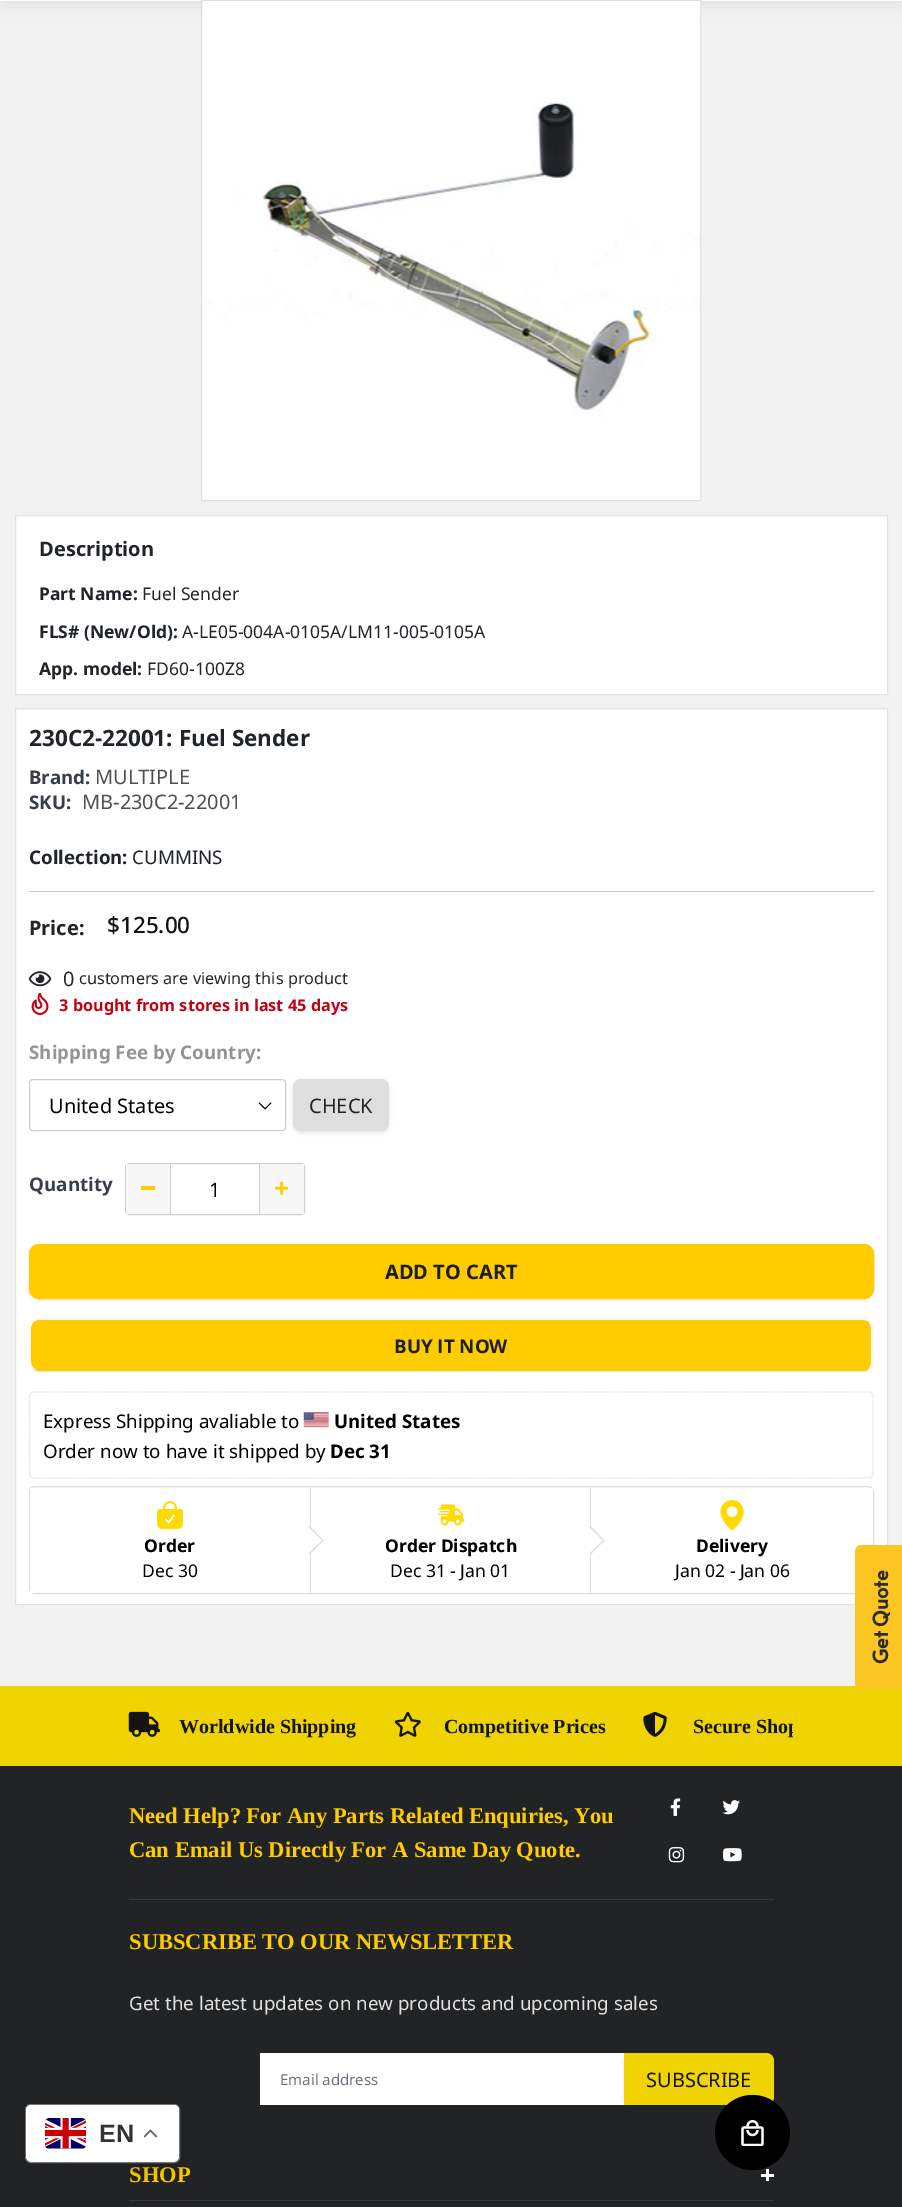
%!PS
<< /PageSize [902 2207] /PageUsesTransparency true >> setpagedevice
/m/moveto load def
/l/rlineto load def
/c/rcurveto load def
/z/closepath load def
/f/fill load def
/s/stroke load def
/q/gsave load def
/Q_/grestore load def
/w/setlinewidth load def
/C { dup -16 bitshift 255 div exch dup -8 bitshift 255 and 255 div exch 255 and 255 div setrgbcolor } def
/F { [ exch dup neg 0 0 3 -1 roll 0 0 ] selectfont } def
/T { moveto show } def
/R { rectfill } def
/A { dup .setfillconstantalpha .setstrokeconstantalpha } def
/O { newpath 0 360 arc closepath } def
/Q { 5 dict begin { /r /h /w /y /x } { exch def } forall
  x r add y moveto x w add y 2 copy h add r arct x w add y h add x 1 index r arct
  x y h add x y r arct x y 2 copy exch w add exch r arct closepath end } def
/S { 12 dict begin { /a /b /q /h /w /y /x } { exch def } forall gsave /was 0 def
  9 -2 -9 { dup b mul 4 div /e exch def 1 sub .425 mul 2.718 exch exp 1 add a .99 .min exch div /now exch def
    1 1 now sub 1 was sub div sub A /was now def
    w h .min e 2 mul add 0 gt { x e sub y e sub w e 2 mul add h e 2 mul add
      q e add b .6 mul add w h .min 2 div e add .min 0 .max Q fill } if } for grestore end } def
/I { 5 dict begin { /h /w /y /x /name } { exch def } forall
  gsave x y translate w h scale
  w h 8 [w 0 0 h 0 0] name (r) file false 3 colorimage grestore end } def
0 .pushpdf14devicefilter
0 2207 translate 1 -1 scale
4 setmiterlimit
16#F2F2F2 C
0 0 902 2207 R
16#000000 C
0 -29 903 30 0 9.5 .1 S
16#FFFFFF C
0 0 902 1 R
16#DDDDDD C
201.5 .5 499 500 rectstroke
(1.rgb) 202 1 499 499 I
16#FFFFFF C
15.5 515.5 m 872 0 l 0 179 l -872 0 l z q f Q_
16#DEE2E6 C
s
/OpenSans-Bold 20 F
16#212529 C
(Description) 39 556 T
/NotoSans-Bold 17.5 F
(Part Name:) 39 600 T
/NotoSans-Regular 17.5 F
(Fuel Sender) 142 600 T
/NotoSans-Bold 17.5 F
(FLS# \(New/Old\):) 39 638 T
/NotoSans-Regular 17.5 F
(A-LE05-004A-0105A/LM11-005-0105A) 182 638 T
/NotoSans-Bold 17.5 F
(App. model:) 39 675 T
/NotoSans-Regular 17.5 F
(FD60-100Z8) 147 675 T
16#FFFFFF C
15.5 708.5 m 872 0 l 0 896 l -872 0 l z q f Q_
16#DEE2E6 C
s
/OpenSans-Bold 22.5 F
16#212529 C
(230C2-22001: Fuel Sender) 29 746 T
/NotoSans-Bold 18.75 F
16#383E47 C
(Brand:) 29 784 T
/NotoSans-Regular 20 F
16#505050 C
(MULTIPLE) 95 784 T
/NotoSans-Bold 18.75 F
16#383E47 C
(SKU:) 29 809 T
/NotoSans-Regular 20 F
16#505050 C
(MB-230C2-22001) 82 809 T
/NotoSans-Bold 18.75 F
16#212529 C
(Collection:) 29 864 T
/NotoSans-Regular 18.75 F
(CUMMINS) 132 864 T
16#C8C9CA C
29 891 845 1 R
/NotoSans-Bold 20 F
16#212529 C
(Price:) 29 935 T
/NotoSans-Medium 22.5 F
16#141414 C
($125.00) 107 933 T
(2.rgb) 28 971 24 16 I
/NotoSans-Regular 20 F
16#212529 C
(0) 63 986 T
/NotoSans-Regular 16.25 F
(customers are viewing this product) 79 984 T
(3.rgb) 31 993 18 22 I
/NotoSans-Bold 16.25 F
16#C10011 C
(3 bought from stores in last 45 days) 59 1011 T
/NotoSans-Bold 18.75 F
16#949494 C
(Shipping Fee by Country:) 29 1059 T
(4.rgb) 258 1102 14 8 I
16#CCCFD6 C
29.5 1079.5 256 51 3.5 Q s
/NotoSans-Regular 20 F
16#000000 C
(United States) 49 1113 T
293 1080 96 53 8 2 .1 S
16#DEDEDE C
293 1079 96 52 8 Q f
16#212529 C
(CHECK) 309 1113 T
/OpenSans-Bold 18.75 F
16#383E47 C
(Quantity) 29 1191 T
16#CCCFD6 C
125.5 1163.5 179 51 3.5 Q s
16#F7F7F7 C
126 1164 44 50 R
16#CCCFD6 C
170 1164 1 50 R
16#FFCC00 C
141 1186 14 4 R
/NotoSans-Regular 20 F
16#000000 C
(1) 209 1197 T
16#F7F7F7 C
260 1164 44 50 R
16#CCCFD6 C
259 1164 1 50 R
(5.rgb) 275 1181 14 14 I
16#000000 C
29 1245 845 55 10 2 .1 S
16#FFCC00 C
30.5 1245.5 842 52 8.5 Q q f Q_
3 w
s
/NotoSans-Bold 20 F
16#1E1E1E C
(ADD TO CART) 385 1279 T
16#FFCC00 C
39 1320 m 825 0 l 4 0 7 3 7 8 c 0 34 l 0 5 -3 9 -7 9 c -825 0 l -4 0 -8 -4 -8 -9 c 0 -34 l 0 -5 4 -8 8 -8 c z f
16#F7F7F7 C
39 1318 m -3 0 -5 1 -7 3 c 1 1 l 2 -1 4 -2 6 -2 c 825 0 l 2 0 4 1 5 2 c 2 -1 l -2 -2 -5 -3 -7 -3 c z f
871 1321 m 1 1 2 3 3 5 c 0 38 l -1 3 -2 5 -5 6 c -1 0 l 2 -2 3 -5 3 -8 c 0 -34 l 0 -2 -1 -4 -2 -6 c z f
16#E2E4E8 C
869 1370 m -1 1 -3 2 -5 2 c -825 0 l -2 0 -4 -1 -6 -2 c 2 -1 l 1 1 3 2 4 2 c 825 0 l 1 0 3 -1 4 -1 c z f
16#F7F7F7 C
32 1321 m -2 1 -3 4 -3 7 c 0 34 l 0 4 2 7 4 8 c 2 -1 l -2 -1 -4 -4 -4 -7 c 0 -34 l 0 -2 1 -4 2 -6 c z f
/OpenSans-Bold 18.75 F
16#1E1E1E C
(BUY IT NOW) 394 1353 T
16#E2E2E2 C
1.2 w
[1.25 1.25] 0 setdash
34 1392 m 835 0 l 2 0 4 2 4 4 c 0 78 l 0 2 -2 4 -4 4 c -835 0 l -2.5 0 -4.5 -2 -4.5 -4 c 0 -78 l 0 -2 2 -4 4.5 -4 c z s
/NotoSans-Regular 18.75 F
16#000000 C
(Express Shipping avaliable to) 43 1428 T
(6.rgb) 303 1412 26 16 I
/NotoSans-Bold 18.75 F
(United States) 334 1428 T
/NotoSans-Regular 18.75 F
(Order now to have it shipped by) 43 1458 T
/NotoSans-Bold 18.75 F
(Dec 31) 330 1458 T
16#DEDEDE C
1 w
[] 0 setdash
29.5 1486.5 844 107 5.5 Q s
16#FFFFFF C
30 1488 4 105 R
16#DEDEDE C
310 1488 1 105 R
(7.rgb) 157 1501 26 28 I
/NotoSans-Bold 17.5 F
16#000000 C
(Order) 144 1552 T
/NotoSans-Regular 17.5 F
(Dec 30) 142 1577 T
16#FFFFFF C
295.5 1540.5 m 14 -14.5 l 14 14.5 l -14 14 l z f
0.15 A
16#222426 C
309.5 1526 m 14 14.5 l -1.5 0 l -13.5 -13.5 l z f
323.5 1540.5 m -14 14 l -1 -1 l 13.5 -13 l z f
1 A
16#DEDEDE C
590 1488 1 105 R
(8.rgb) 438 1504 27 22 I
/NotoSans-Bold 17.5 F
16#000000 C
(Order Dispatch) 385 1552 T
/NotoSans-Regular 17.5 F
(Dec 31 - Jan 01) 390 1577 T
16#FFFFFF C
576.5 1540.5 m 14 -14.5 l 14 14.5 l -14 14 l z f
0.15 A
16#222426 C
590.5 1526 m 14 14.5 l -1.5 0 l -13.5 -13.5 l z f
1 A
16#DEDEDE C
604.5 1540.5 m -14 14 l -1 -1 l 13.5 -13 l z f
16#FFFFFF C
869 1488 4 105 R
(9.rgb) 720 1500 24 30 I
/NotoSans-Bold 17.5 F
16#000000 C
(Delivery) 696 1552 T
/NotoSans-Regular 17.5 F
(Jan 02 - Jan 06) 675 1577 T
16#EFD401 C
0 1686 902 80 R
(10.rgb) 128 1711 32 26 I
/LiberationSerif-Bold 20 F
16#141414 C
(Worldwide Shipping) 179 1733 T
(11.rgb) 394 1711 27 26 I
(Competitive Prices) 444 1733 T
(12.rgb) 643 1711 24 26 I
q
110 1686 683 80 rectclip
(Secure Shop) 693 1733 T
Q_
16#222325 C
0 1766 902 441 R
16#39393B C
129 1899 645 1 R
/LiberationSerif-Bold 22.5 F
16#FFCC00 C
(Need Help? For Any Parts Related Enquiries, You) 129 1823 T
(Can Email Us Directly For A Same Day Quote.) 129 1857 T
(13.rgb) 670 1798 11 18 I
(14.rgb) 722 1800 18 15 I
(15.rgb) 668 1847 17 16 I
(16.rgb) 723 1848 19 14 I
(SUBSCRIBE TO OUR NEWSLETTER) 129 1949 T
/NotoSans-Regular 18.75 F
16#DFDFDF C
(Get the latest updates on new products and upcoming sales) 129 2010 T
16#FFFFFF C
260 2053 364 52 R
/NotoSans-Regular 15 F
16#6C757D C
(Email address) 280 2085 T
16#000000 C
624 2054 150 52 8 2 .1 S
16#EFD401 C
624 2053 m 142 0 l 4.5 0 8 3.5 8 8 c 0 36 l 0 4.5 -3.5 8 -8 8 c -142 0 l z f
/NotoSans-Regular 20 F
16#141414 C
(SUBSCRIBE) 646 2087 T
16#39393B C
129 2200 645 1 R
/LiberationSerif-Bold 22.5 F
16#FFCC00 C
(SHOP) 129 2182 T
16#FFFFFF C
766 2169 3 12 R
761 2174 13 3 R
16#FCC521 C
855 1683 m 0 -131 l 0 -4 3 -7 6 -7 c 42 0 l 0 144 l -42 0 l -3 0 -6 -3 -6 -6 c z f
/Alata-Bold 20 F
16#2C2C2C C
q 888 1664 translate -90 rotate 0 0 m (Get Quote) show Q_
16#000000 C
25 2110 155 59 6 9.5 .15 S
16#FFFFFF C
25.5 2104.5 154 58 5.5 Q q f Q_
16#747474 C
s
16#FFFFFF C
26 2105 153 56 5 Q f
(17.rgb) 45 2118 41 31 I
/LiberationSans-Bold 25 F
16#333333 C
(EN) 99 2142 T
(18.rgb) 144 2129 14 9 I
16#000000 C
752.5 2132.5 37.5 O f
(19.rgb) 741 2120 23 26 I
.poppdf14devicefilter showpage
